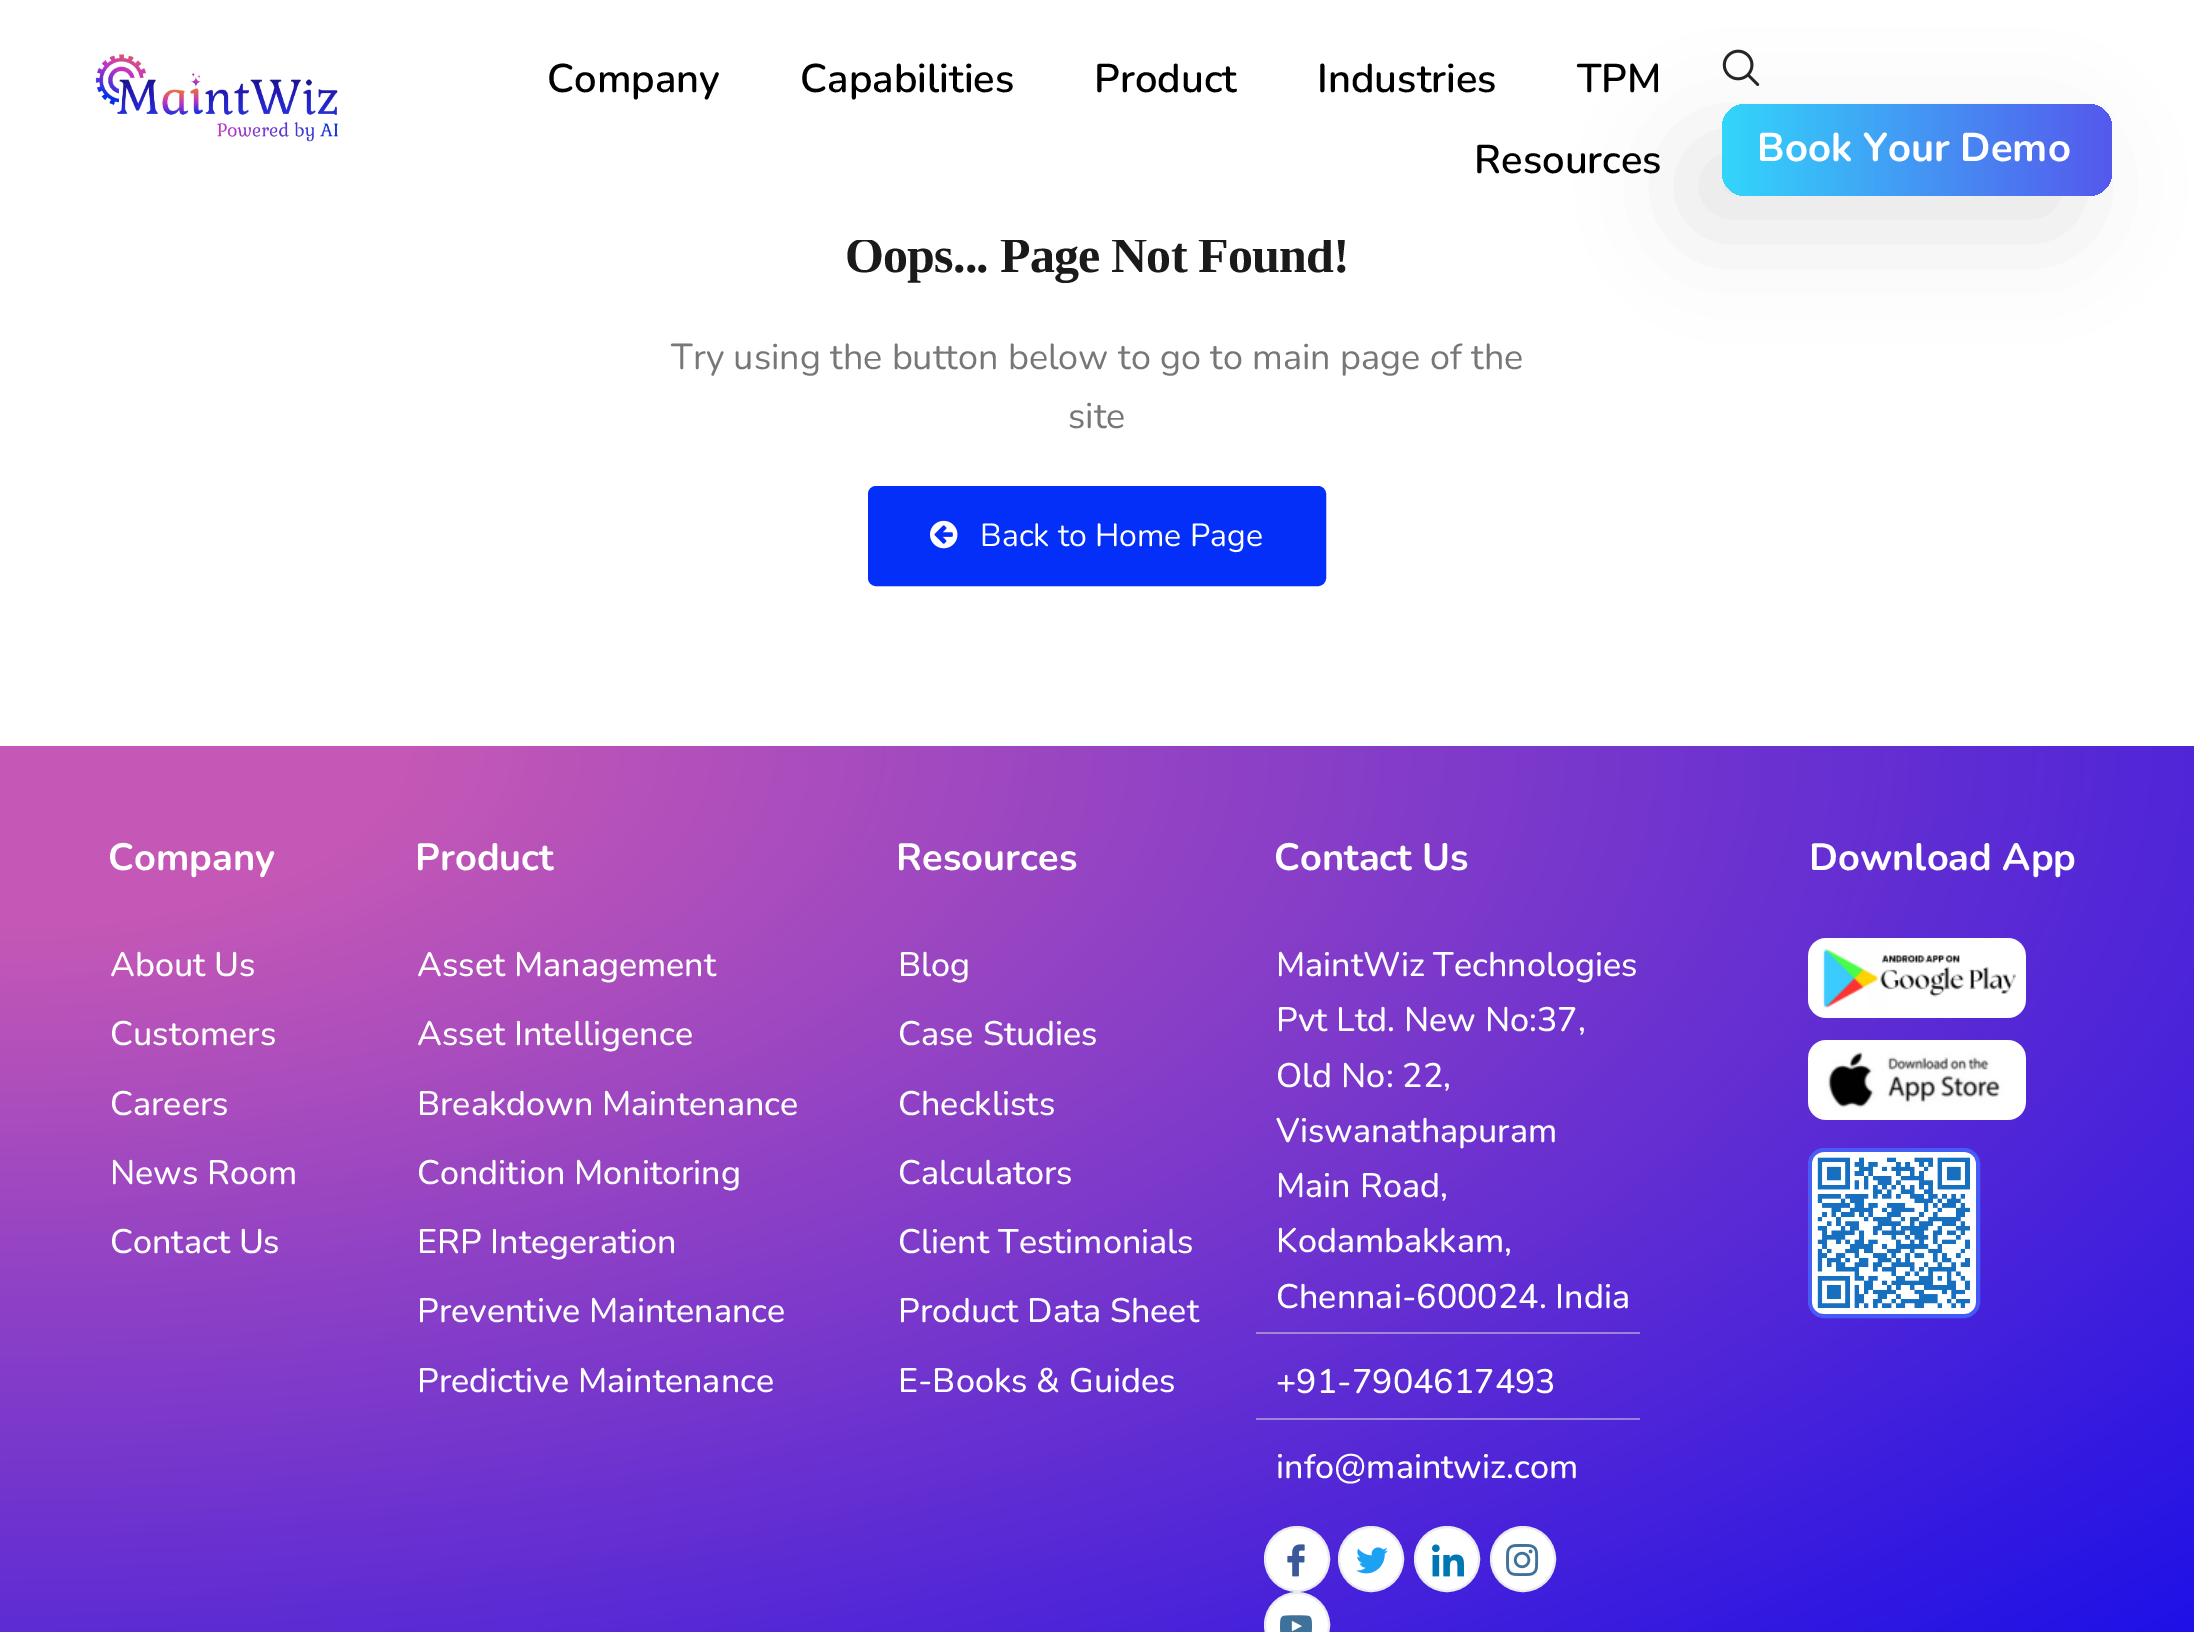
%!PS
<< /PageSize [2194 1632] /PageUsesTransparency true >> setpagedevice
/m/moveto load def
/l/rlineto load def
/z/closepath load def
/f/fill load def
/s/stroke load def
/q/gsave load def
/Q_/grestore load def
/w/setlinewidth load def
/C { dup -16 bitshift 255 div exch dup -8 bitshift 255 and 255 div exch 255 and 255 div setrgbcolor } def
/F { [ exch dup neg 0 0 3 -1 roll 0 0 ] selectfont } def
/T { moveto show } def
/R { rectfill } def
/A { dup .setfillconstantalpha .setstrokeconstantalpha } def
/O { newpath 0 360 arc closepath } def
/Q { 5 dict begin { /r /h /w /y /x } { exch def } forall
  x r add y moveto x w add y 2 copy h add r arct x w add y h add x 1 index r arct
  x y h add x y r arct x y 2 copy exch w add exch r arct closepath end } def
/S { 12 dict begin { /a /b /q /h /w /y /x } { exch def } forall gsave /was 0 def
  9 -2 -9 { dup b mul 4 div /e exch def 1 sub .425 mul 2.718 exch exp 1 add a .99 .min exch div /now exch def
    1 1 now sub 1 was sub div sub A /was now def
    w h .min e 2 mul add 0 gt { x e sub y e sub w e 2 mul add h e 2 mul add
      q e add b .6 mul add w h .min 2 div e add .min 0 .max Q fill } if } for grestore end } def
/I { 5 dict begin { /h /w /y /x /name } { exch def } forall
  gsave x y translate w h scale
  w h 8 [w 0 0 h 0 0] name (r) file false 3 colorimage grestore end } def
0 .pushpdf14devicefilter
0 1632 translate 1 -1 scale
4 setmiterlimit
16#FFFFFF C
0 0 2194 1632 R
/LiberationSerif-Bold 50 F
16#1A1A1A C
845 272 m -.8 0 (Oops... Page Not Found!) ashow
16#FFFFFF C
857 237 488 3 R
(1.rgb) 95 54 243 88 I
/Nunito-SemiBold 40 F
16#000000 C
(Company) 547 92 T
(Capabilities) 800 92 T
(Product) 1094 92 T
(Industries) 1317 92 T
(2.rgb) 1722 49 38 37 I
1686 140 390 92 24 50 .1 S
(TPM) 1577 92 T
(Resources) 1474 173 T
q 1722 104 390 92 24 Q clip newpath
<< /ShadingType 2 /ColorSpace /DeviceRGB /Coords [1722 150 2112 150] /Extend [true true] /Function << /FunctionType 2 /Domain [0 1] /C0 [.196 .839 .984] /C1 [.333 .345 .929] /N 1 >> >> shfill Q_
/Nunito-Bold 40 F
16#FFFFFF C
(Book Your Demo) 1757 161 T
/Nunito-Regular 36 F
16#777777 C
(Try using the button below to go to main page of the) 671 369 T
(site) 1068 428 T
16#042FF8 C
869 487 456 98 7 Q q f Q_
2 w
s
(3.rgb) 930 520 28 29 I
/Nunito-Regular 32 F
16#FFFFFF C
(Back to Home Page) 980 546 T
q 0 746 m 2194 0 l 0 886 l -2194 0 l z clip newpath 0 746 translate 3103 1389 scale
<< /ShadingType 3 /ColorSpace /DeviceRGB /Coords [0 0 0 0 0 1] /Extend [true true] /Function << /FunctionType 3 /Domain [0 1] /Functions [<< /FunctionType 2 /Domain [0 1] /C0 [.773 .345 .714] /C1 [.773 .345 .714] /N 1 >> << /FunctionType 2 /Domain [0 1] /C0 [.773 .345 .714] /C1 [.094 .055 .91] /N 1 >> << /FunctionType 2 /Domain [0 1] /C0 [.094 .055 .91] /C1 [.094 .055 .91] /N 1 >>] /Bounds [.13 .98] /Encode [0 1 0 1 0 1] >> >> shfill Q_
q 1256 1418 m 384 0 l 0 2 l -384 0 l z clip newpath 0 746 translate 3103 1389 scale
<< /ShadingType 3 /ColorSpace /DeviceRGB /Coords [0 0 0 0 0 1] /Extend [true true] /Function << /FunctionType 3 /Domain [0 1] /Functions [<< /FunctionType 2 /Domain [0 1] /C0 [.82 .608 .792] /C1 [.82 .608 .792] /N 1 >> << /FunctionType 2 /Domain [0 1] /C0 [.82 .608 .792] /C1 [.482 .463 .89] /N 1 >> << /FunctionType 2 /Domain [0 1] /C0 [.482 .463 .89] /C1 [.482 .463 .89] /N 1 >>] /Bounds [.13 .98] /Encode [0 1 0 1 0 1] >> >> shfill Q_
q 1256 1332 m 384 0 l 0 2 l -384 0 l z clip newpath 0 746 translate 3103 1389 scale
<< /ShadingType 3 /ColorSpace /DeviceRGB /Coords [0 0 0 0 0 1] /Extend [true true] /Function << /FunctionType 3 /Domain [0 1] /Functions [<< /FunctionType 2 /Domain [0 1] /C0 [.82 .608 .792] /C1 [.82 .608 .792] /N 1 >> << /FunctionType 2 /Domain [0 1] /C0 [.82 .608 .792] /C1 [.482 .463 .89] /N 1 >> << /FunctionType 2 /Domain [0 1] /C0 [.482 .463 .89] /C1 [.482 .463 .89] /N 1 >>] /Bounds [.13 .98] /Encode [0 1 0 1 0 1] >> >> shfill Q_
/Nunito-Bold 38 F
(Company) 108 870 T
/Nunito-Medium 34 F
(About Us) 110 976 T
(Customers) 110 1045 T
(Careers) 110 1115 T
(News Room) 110 1184 T
(Contact Us) 110 1253 T
/Nunito-Bold 38 F
(Product) 415 870 T
/Nunito-Medium 34 F
(Asset Management) 417 976 T
(Asset Intelligence) 417 1045 T
(Breakdown Maintenance) 417 1115 T
(Condition Monitoring) 417 1184 T
(ERP Integeration) 417 1253 T
(Preventive Maintenance) 417 1322 T
(Predictive Maintenance) 417 1392 T
/Nunito-Bold 38 F
(Resources) 896 870 T
/Nunito-Medium 34 F
(Blog) 898 976 T
(Case Studies) 898 1045 T
(Checklists) 898 1115 T
(Calculators) 898 1184 T
(Client Testimonials) 898 1253 T
(Product Data Sheet) 898 1322 T
(E-Books & Guides) 898 1392 T
/Nunito-Bold 38 F
(Contact Us) 1274 870 T
/Nunito-Medium 34 F
(MaintWiz Technologies) 1276 976 T
(Pvt Ltd. New No:37,) 1276 1031 T
(Old No: 22,) 1276 1087 T
(Viswanathapuram) 1276 1142 T
(Main Road,) 1276 1197 T
(Kodambakkam,) 1276 1252 T
(Chennai-600024. India) 1276 1308 T
(+91-7904617493) 1276 1393 T
(info@maintwiz.com) 1276 1478 T
1297 1559 32 O q f Q_
16#EAEBF1 C
s
(4.rgb) 1287 1544 18 33 I
16#FFFFFF C
1371 1559 32 O q f Q_
16#EAEBF1 C
s
(5.rgb) 1356 1547 32 27 I
16#FFFFFF C
1447 1559 32 O q f Q_
16#EAEBF1 C
s
(6.rgb) 1432 1544 32 33 I
16#FFFFFF C
1523 1559 32 O q f Q_
16#EAEBF1 C
s
(7.rgb) 1506 1544 33 32 I
16#FFFFFF C
1297 1625 32 O q f Q_
16#EAEBF1 C
s
(8.rgb) 1280 1615 32 17 I
/Nunito-Bold 38 F
16#FFFFFF C
(Download App) 1809 870 T
(9.rgb) 1808 938 218 80 I
(10.rgb) 1808 1040 218 80 I
0.76 A
16#426DFF C
4 w
1810 1150 168 166 14 Q s
1 A
(11.rgb) 1812 1152 164 162 I
.poppdf14devicefilter showpage
